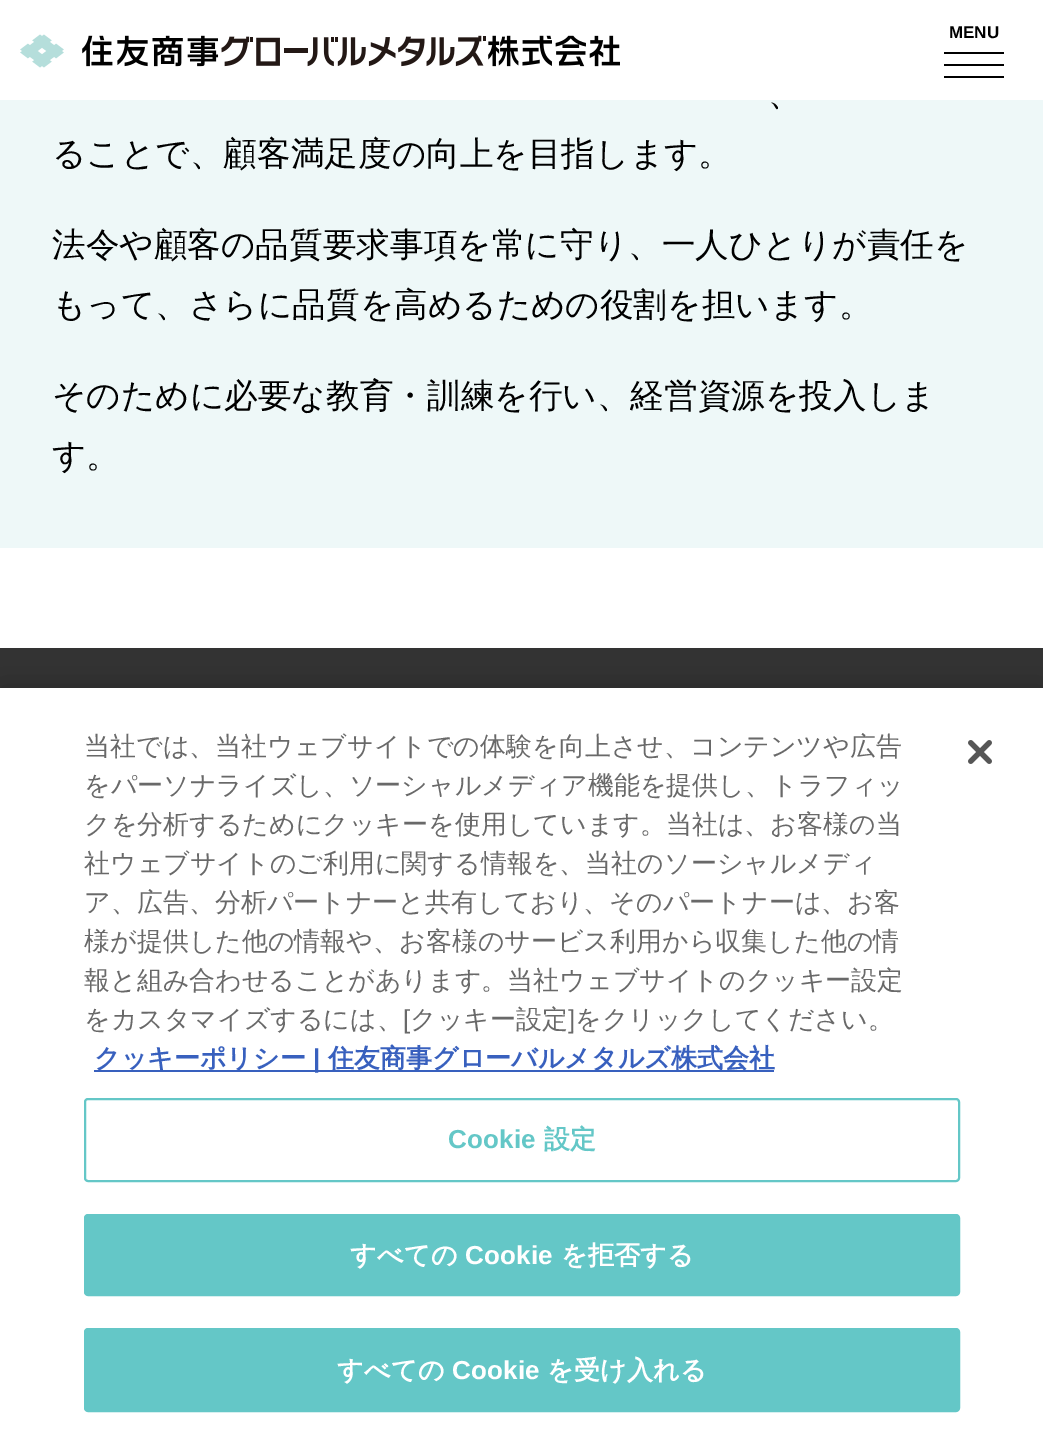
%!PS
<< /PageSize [1043 1443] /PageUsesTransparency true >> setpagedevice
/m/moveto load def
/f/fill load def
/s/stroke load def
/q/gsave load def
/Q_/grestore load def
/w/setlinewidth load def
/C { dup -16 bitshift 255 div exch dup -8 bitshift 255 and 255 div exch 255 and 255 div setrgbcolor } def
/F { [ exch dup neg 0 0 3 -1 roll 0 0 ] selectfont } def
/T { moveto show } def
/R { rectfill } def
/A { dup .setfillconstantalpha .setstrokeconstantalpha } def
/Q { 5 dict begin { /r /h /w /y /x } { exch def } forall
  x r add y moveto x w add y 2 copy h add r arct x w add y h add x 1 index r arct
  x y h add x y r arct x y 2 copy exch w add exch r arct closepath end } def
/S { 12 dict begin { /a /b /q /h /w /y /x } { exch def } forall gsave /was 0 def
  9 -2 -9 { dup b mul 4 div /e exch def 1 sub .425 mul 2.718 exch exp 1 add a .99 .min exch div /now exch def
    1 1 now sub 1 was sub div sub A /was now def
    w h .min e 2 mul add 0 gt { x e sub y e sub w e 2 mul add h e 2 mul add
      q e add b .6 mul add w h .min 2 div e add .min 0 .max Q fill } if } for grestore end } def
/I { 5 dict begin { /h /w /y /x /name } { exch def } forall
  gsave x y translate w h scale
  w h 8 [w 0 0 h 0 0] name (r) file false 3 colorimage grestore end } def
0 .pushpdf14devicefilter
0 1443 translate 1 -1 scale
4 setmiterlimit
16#FFFFFF C
0 0 1043 1443 R
/LiberationSans-Bold 17 F
16#000000 C
(MENU) 949 38 T
944 52 60 2 R
944 64 60 2 R
944 76 60 2 R
(1.rgb) 20 34 600 34 I
16#EEF8F8 C
0 100 1043 448 R
/WenQuanYiZenHei-Medium 33.65 F
16#000000 C
(、) 768 105 T
(ることで、顧客満足度の向上を目指します。) 52 165 T
(法令や顧客の品質要求事項を常に守り、一人ひとりが責任を) 52 256 T
(もって、さらに品質を高めるための役割を担います。) 52 316 T
(そのために必要な教育・訓練を行い、経営資源を投入しま) 52 407 T
(す。) 52 467 T
16#333333 C
0 648 1043 40 R
16#000000 C
0 688 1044 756 0 18 .2 S
16#FFFFFF C
0 688 1043 755 R
/WenQuanYiZenHei-Medium 26 F
16#696969 C
(当社では、当社ウェブサイトでの体験を向上させ、コンテンツや広告) 84 755 T
(をパーソナライズし、ソーシャルメディア機能を提供し、トラフィッ) 84 794 T
(クを分析するためにクッキーを使用しています。当社は、お客様の当) 84 833 T
(社ウェブサイトのご利用に関する情報を、当社のソーシャルメディ) 84 872 T
(ア、広告、分析パートナーと共有しており、そのパートナーは、お客) 84 911 T
(様が提供した他の情報や、お客様のサービス利用から収集した他の情) 84 950 T
(報と組み合わせることがあります。当社ウェブサイトのクッキー設定) 84 989 T
(をカスタマイズするには、) 84 1028 T
/LiberationSans-Regular 26 F
([) 403 1028 T
/WenQuanYiZenHei-Medium 26 F
(クッキー設定) 410 1028 T
/LiberationSans-Regular 26 F
(]) 568 1028 T
/WenQuanYiZenHei-Medium 26 F
(をクリックしてください。) 575 1028 T
16#3860BE C
94 1070 680 2 R
/WenQuanYiZenHei-Bold 26 F
(クッキーポリシー) 94 1067 T
/LiberationSans-Bold 26 F
(|) 313 1067 T
/WenQuanYiZenHei-Bold 26 F
(住友商事グローバルメタルズ株式会社) 328 1067 T
16#64C7C7 C
2 w
85 1099 874 82 3 Q s
/LiberationSans-Bold 26 F
448 1148 m .25 0 (Cookie) ashow
/WenQuanYiZenHei-Bold 26 F
544 1148 m .25 0 (設定) ashow
85 1215 874 80 3 Q q f Q_
s
16#FFFFFF C
350 1264 m .25 0 (すべての) ashow
/LiberationSans-Bold 26 F
465 1264 m .25 0 (Cookie) ashow
/WenQuanYiZenHei-Bold 26 F
561 1264 m .25 0 (を拒否する) ashow
16#64C7C7 C
85 1329 874 82 3 Q q f Q_
s
16#FFFFFF C
337 1379 m .25 0 (すべての) ashow
/LiberationSans-Bold 26 F
452 1379 m .25 0 (Cookie) ashow
/WenQuanYiZenHei-Bold 26 F
547 1379 m .25 0 (を受け入れる) ashow
(2.rgb) 968 740 24 24 I
.poppdf14devicefilter showpage
